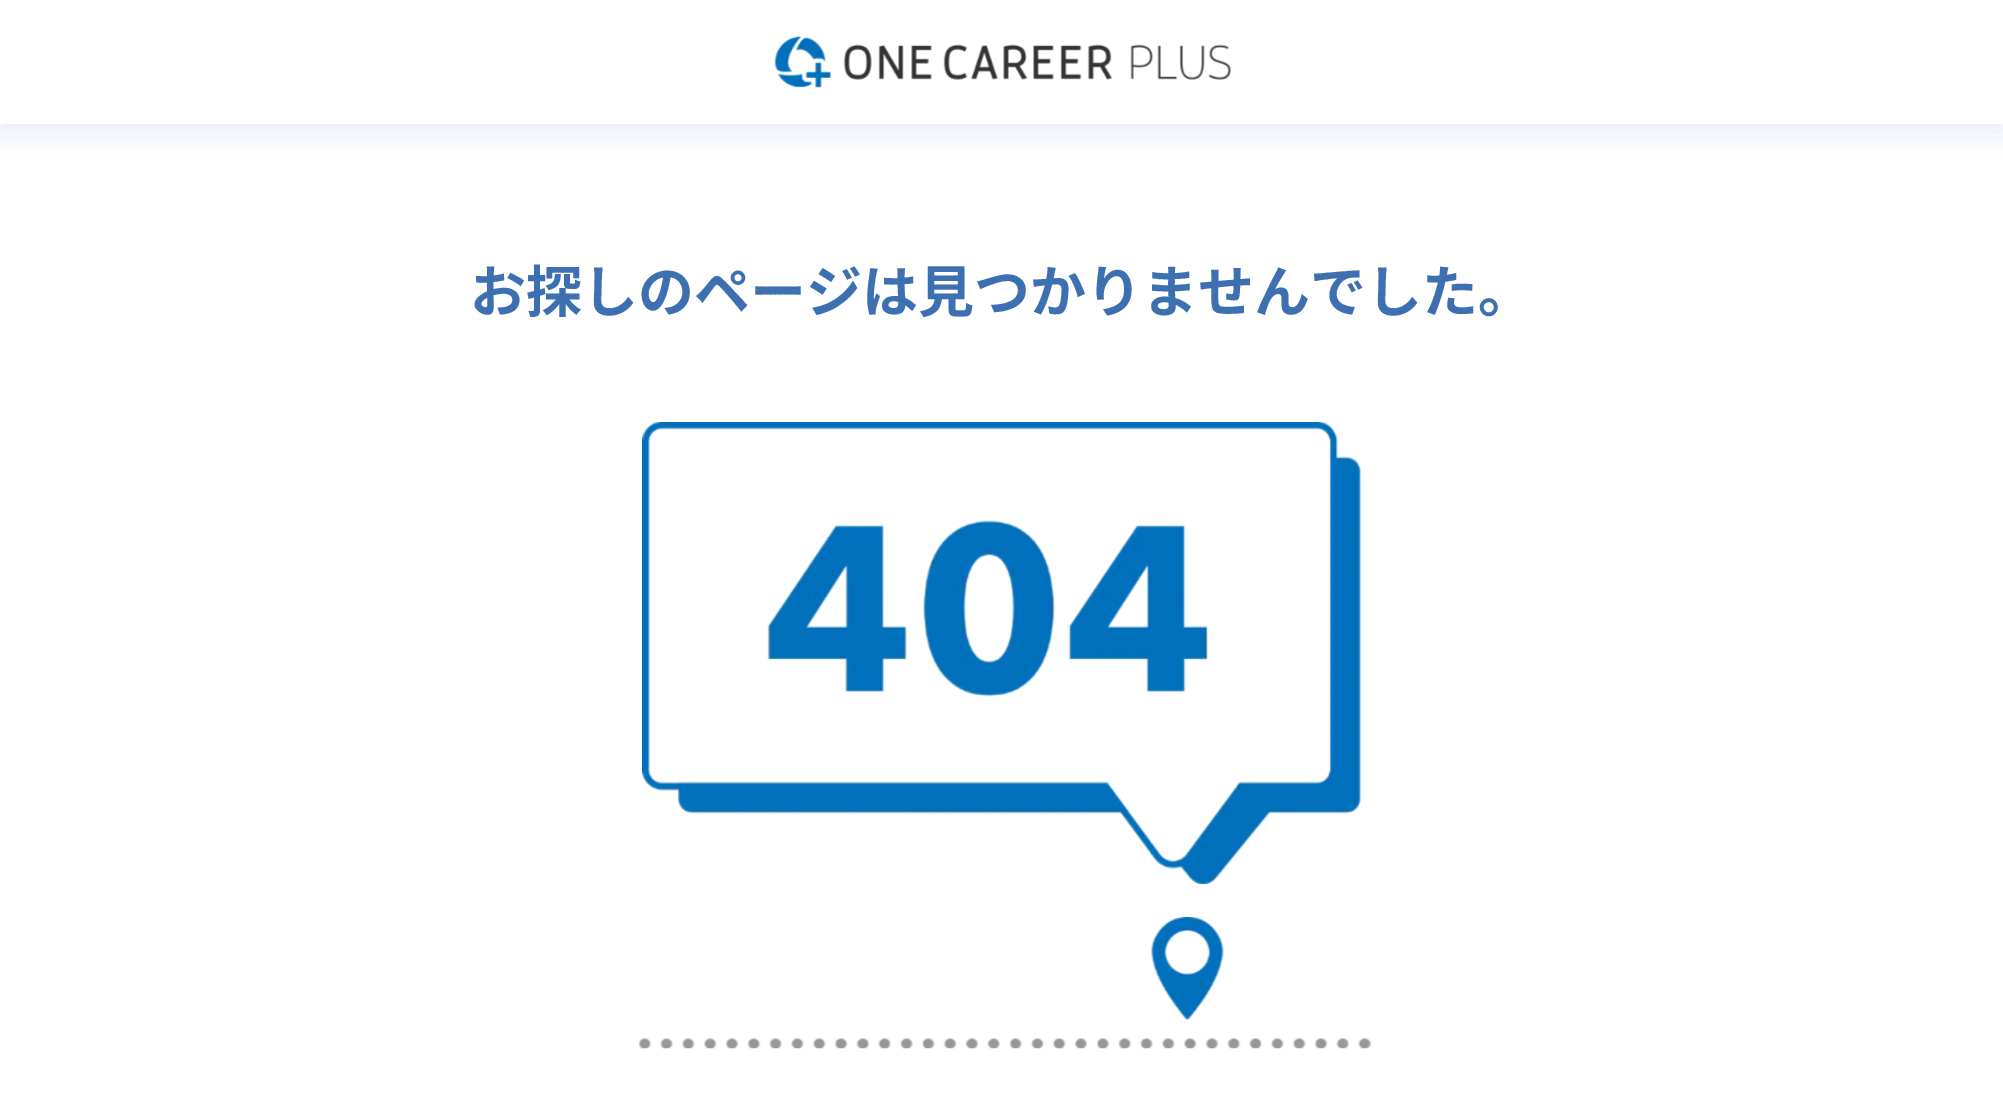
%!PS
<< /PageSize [2003 1113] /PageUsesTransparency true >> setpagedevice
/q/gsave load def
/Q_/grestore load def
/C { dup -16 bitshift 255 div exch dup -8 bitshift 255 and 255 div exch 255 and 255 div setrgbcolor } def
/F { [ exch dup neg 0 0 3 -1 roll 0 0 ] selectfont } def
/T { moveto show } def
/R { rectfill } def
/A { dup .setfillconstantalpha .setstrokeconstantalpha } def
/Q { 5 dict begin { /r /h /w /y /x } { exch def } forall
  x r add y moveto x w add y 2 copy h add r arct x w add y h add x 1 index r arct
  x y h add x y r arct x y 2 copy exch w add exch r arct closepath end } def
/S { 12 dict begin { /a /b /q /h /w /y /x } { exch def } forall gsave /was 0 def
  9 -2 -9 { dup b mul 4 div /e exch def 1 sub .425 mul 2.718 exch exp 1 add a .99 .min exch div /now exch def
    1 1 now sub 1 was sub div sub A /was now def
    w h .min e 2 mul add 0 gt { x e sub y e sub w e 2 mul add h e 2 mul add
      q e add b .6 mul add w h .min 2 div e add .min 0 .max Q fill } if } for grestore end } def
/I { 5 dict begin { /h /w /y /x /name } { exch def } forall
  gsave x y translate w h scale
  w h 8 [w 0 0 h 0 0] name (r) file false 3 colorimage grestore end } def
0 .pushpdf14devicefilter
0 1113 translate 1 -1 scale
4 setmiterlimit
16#FFFFFF C
0 0 2003 1113 R
q
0 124 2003 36 rectclip
16#E4E9F7 C
0 7 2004 124 0 14 1 S
Q_
(1.rgb) 774 36 457 52 I
/NotoSansJP-Bold 56 F
16#3D70B0 C
(お探しのページは見つかりませんでした。) 470 312 T
(2.rgb) 642 422 720 462 I
(3.rgb) 638 917 733 132 I
.poppdf14devicefilter showpage
